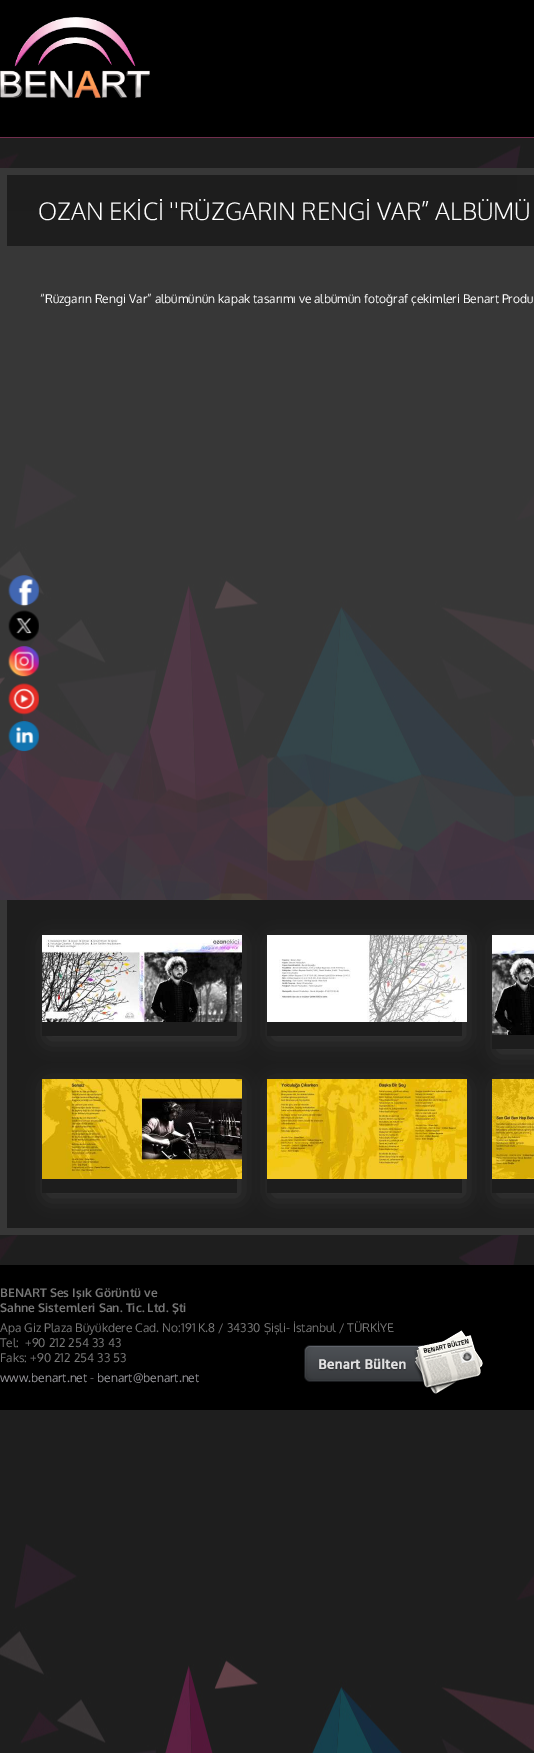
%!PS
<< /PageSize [534 1753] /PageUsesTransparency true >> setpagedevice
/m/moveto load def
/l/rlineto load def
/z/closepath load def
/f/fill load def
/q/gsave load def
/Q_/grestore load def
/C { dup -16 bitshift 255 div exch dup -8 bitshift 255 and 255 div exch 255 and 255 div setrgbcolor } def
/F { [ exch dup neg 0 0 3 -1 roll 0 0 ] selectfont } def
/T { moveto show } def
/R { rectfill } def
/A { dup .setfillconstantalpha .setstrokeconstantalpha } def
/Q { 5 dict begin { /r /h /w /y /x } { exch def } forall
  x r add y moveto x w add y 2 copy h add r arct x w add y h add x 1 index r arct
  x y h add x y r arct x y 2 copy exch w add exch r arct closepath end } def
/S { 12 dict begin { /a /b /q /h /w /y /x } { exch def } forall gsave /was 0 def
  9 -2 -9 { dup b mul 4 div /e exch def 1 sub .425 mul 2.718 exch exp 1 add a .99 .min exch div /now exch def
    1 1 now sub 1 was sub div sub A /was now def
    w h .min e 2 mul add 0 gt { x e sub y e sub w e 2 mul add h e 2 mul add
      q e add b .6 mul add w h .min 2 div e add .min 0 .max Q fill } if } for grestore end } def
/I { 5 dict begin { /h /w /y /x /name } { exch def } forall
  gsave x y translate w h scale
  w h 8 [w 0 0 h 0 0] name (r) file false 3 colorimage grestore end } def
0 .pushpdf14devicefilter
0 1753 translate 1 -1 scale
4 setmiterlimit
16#FFFFFF C
0 0 534 1753 R
(1.rgb) 0 138 534 1615 I
16#000000 C
0 0 534 137 R
16#712D4C C
0 137 534 1 R
(2.rgb) 0 17 150 81 I
16#1D1D1D C
0 168 517 43 R
16#373737 C
0 168 m 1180 0 l -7 7 l -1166 0 l z f
0.6 A
16#484848 C
0 246 m 0 -78 l 7 7 l 0 71 l z f
/Oxygen-Light 24 F
1 A
16#FFFFFF C
(OZAN EKİCİ ''RÜZGARIN RENGİ VAR” ALBÜMÜ) 38 220 T
0.6 A
16#484848 C
0 246 534 654 R
/Oxygen-Regular 12 F
1 A
16#FFFFFF C
(“Rüzgarın Rengi Var” albümünün kapak tasarımı ve albümün fotoğraf çekimleri Benart Produ) 40 303 T
16#1D1D1D C
0 900 534 335 R
16#373737 C
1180 1235 m -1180 0 l 7 -7 l 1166 0 l z f
0.6 A
16#484848 C
0 1235 m 0 -335 l 7 0 l 0 328 l z f
q
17 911 m 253 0 l 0 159 l -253 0 l z 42 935 m 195 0 l 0 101 l -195 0 l z eoclip newpath
1 A
16#FFFFFF C
48 942 191 97 0 10 .13 S
Q_
1 A
(3.rgb) 42 935 200 87 I
q
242 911 m 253 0 l 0 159 l -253 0 l z 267 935 m 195 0 l 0 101 l -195 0 l z eoclip newpath
16#FFFFFF C
273 942 191 97 0 10 .13 S
Q_
(4.rgb) 267 935 200 87 I
q
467 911 m 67 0 l 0 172 l -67 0 l z 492 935 m 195 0 l 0 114 l -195 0 l z eoclip newpath
16#FFFFFF C
498 942 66 110 0 10 .13 S
Q_
(5.rgb) 492 935 42 100 I
q
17 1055 m 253 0 l 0 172 l -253 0 l z 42 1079 m 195 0 l 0 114 l -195 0 l z eoclip newpath
16#FFFFFF C
48 1086 191 110 0 10 .13 S
Q_
(6.rgb) 42 1079 200 100 I
q
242 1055 m 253 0 l 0 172 l -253 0 l z 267 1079 m 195 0 l 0 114 l -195 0 l z eoclip newpath
16#FFFFFF C
273 1086 191 110 0 10 .13 S
Q_
(7.rgb) 267 1079 200 100 I
q
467 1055 m 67 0 l 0 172 l -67 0 l z 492 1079 m 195 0 l 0 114 l -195 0 l z eoclip newpath
16#FFFFFF C
498 1086 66 110 0 10 .13 S
Q_
(8.rgb) 492 1079 42 100 I
16#000000 C
0 1265 534 145 R
/Oxygen-Bold 12 F
16#777777 C
(BENART Ses Işık Görüntü ve) 0 1297 T
(Sahne Sistemleri San. Tic. Ltd. Şti) 0 1312 T
/Oxygen-Regular 12 F
(Apa Giz Plaza Büyükdere Cad. No:191 K.8 / 34330 Şişli- İstanbul / TÜRKİYE) 0 1332 T
(Tel:) 0 1347 T
(+90 212 254 33 43) 25 1347 T
(Faks: +90 212 254 33 53) 0 1362 T
16#9A999E C
(www.benart.net) 0 1382 T
16#777777 C
(-) 90 1382 T
16#9A999E C
(benart@benart.net) 97 1382 T
(9.rgb) 304 1330 179 64 I
(10.rgb) 8 575 31 177 I
.poppdf14devicefilter showpage
